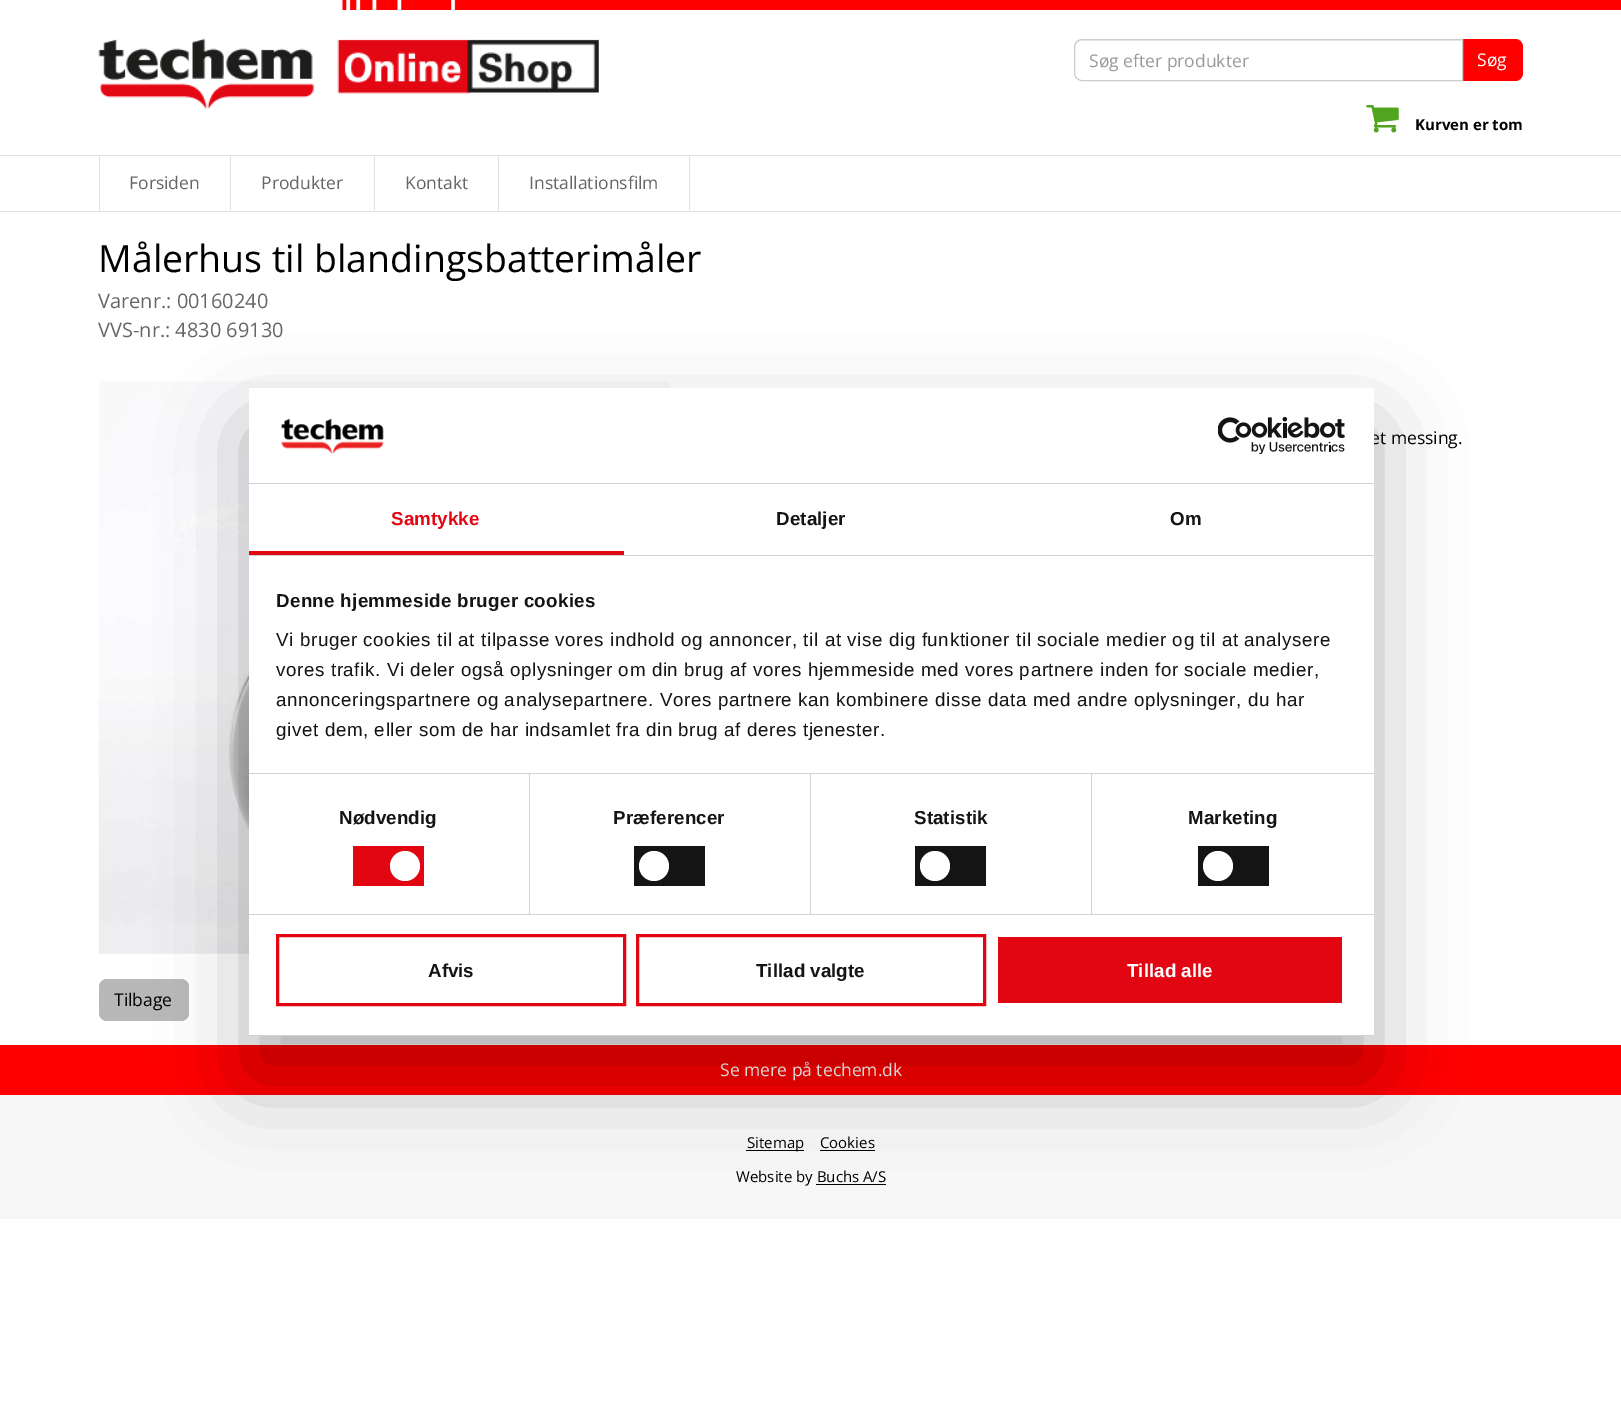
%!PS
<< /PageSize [1621 1423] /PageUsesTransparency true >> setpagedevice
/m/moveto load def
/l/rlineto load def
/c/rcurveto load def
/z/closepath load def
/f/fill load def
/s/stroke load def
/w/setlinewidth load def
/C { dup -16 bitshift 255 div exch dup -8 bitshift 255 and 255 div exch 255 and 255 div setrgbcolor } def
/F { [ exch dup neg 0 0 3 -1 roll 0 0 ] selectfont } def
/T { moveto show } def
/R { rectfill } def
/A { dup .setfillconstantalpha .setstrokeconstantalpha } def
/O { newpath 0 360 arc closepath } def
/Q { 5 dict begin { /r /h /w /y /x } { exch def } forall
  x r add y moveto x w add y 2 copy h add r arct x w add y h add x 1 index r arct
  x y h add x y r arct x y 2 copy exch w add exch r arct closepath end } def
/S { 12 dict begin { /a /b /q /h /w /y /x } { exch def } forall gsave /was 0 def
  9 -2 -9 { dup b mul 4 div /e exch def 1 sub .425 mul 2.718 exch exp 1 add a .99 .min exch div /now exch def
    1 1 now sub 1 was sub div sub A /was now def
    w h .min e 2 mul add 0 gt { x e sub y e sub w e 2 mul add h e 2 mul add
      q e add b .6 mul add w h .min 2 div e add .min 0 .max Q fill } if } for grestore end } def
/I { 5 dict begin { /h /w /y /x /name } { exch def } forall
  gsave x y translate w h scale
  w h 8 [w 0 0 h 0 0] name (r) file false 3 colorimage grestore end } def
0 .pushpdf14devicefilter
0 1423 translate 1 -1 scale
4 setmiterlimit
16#FFFFFF C
0 0 1621 1423 R
(1.rgb) 342 0 469 10 I
16#FF0000 C
811 0 810 10 R
(2.rgb) 98 38 501 71 I
1461 39 m 54 0 l 4.5 0 8 3.5 8 8 c 0 26 l 0 4.5 -3.5 8 -8 8 c -54 0 l z f
16#FFFFFF C
1082 39 m 381 0 l 0 42 l -381 0 l -4.5 0 -8 -3.5 -8 -8 c 0 -26 l 0 -4.5 3.5 -8 8 -8 c z f
16#ECECEC C
1081 41 m 380 0 l 0 -1 l -380 0 l -5 0 -6 4 -6 8 c 0 -4 3 -7 6 -7 c z f
16#CCCCCC C
1082 39.5 m 380.5 0 l 0 41 l -380.5 0 l -4 0 -7.5 -3.5 -7.5 -7.5 c 0 -26 l 0 -4 3.5 -7.5 7.5 -7.5 c z s
/OpenSans-Regular 17.5 F
16#999999 C
(Søg efter produkter) 1089 67 T
16#FFFFFF C
(Søg) 1477 66 T
(3.rgb) 1366 105 33 28 I
/OpenSans-Bold 15 F
16#000000 C
(Kurven er tom) 1415 130 T
16#E1E1E1 C
0 155 1621 1 R
0 211 1621 1 R
99 156 1 55 R
230 156 1 55 R
/OpenSans-Regular 17.5 F
16#666666 C
(Forsiden) 129 189 T
16#E1E1E1 C
374 156 1 55 R
16#666666 C
(Produkter) 261 189 T
16#E1E1E1 C
498 156 1 55 R
16#666666 C
(Kontakt) 405 189 T
16#E1E1E1 C
689 156 1 55 R
16#666666 C
(Installationsfilm) 529 189 T
/OpenSans-Regular 37.5 F
16#000000 C
(Målerhus til blandingsbatterimåler) 98 272 T
/OpenSans-Regular 20 F
16#666666 C
(Varenr.: 00160240) 98 308 T
(VVS-nr.: 4830 69130) 98 337 T
(4.rgb) 98 381 572 573 I
/OpenSans-Regular 17.5 F
16#000000 C
(et messing.) 1370 444 T
16#B8B8B8 C
99 979 90 42 8 Q f
16#000000 C
(Tilbage) 114 1006 T
16#F7F7F7 C
0 1095 1621 124 R
16#FF0000 C
0 1045 1621 50 R
16#FFFFFF C
(Se mere på techem.dk) 720 1076 T
16#000000 C
746 1150 58 1 R
/OpenSans-Regular 15 F
(Sitemap) 747 1148 T
(Cookies) 820 1148 T
820 1150 55 1 R
(Website by Buchs A/S) 736 1182 T
816 1184 70 1 R
249 428 1125 648 0 42.5 .3 S
16#FFFFFF C
249 388 1125 647 R
16#D1D1D1 C
249 483 1125 1 R
(5.rgb) 281 418 103 36 I
(6.rgb) 1218 416 127 38 I
249 555 1125 1 R
16#E20613 C
249 551 375 4 R
/LiberationSans-Bold 18.75 F
391 525 m .1 0 (Samtykke) ashow
16#141414 C
776 525 m .1 0 (Detaljer) ashow
1170 525 m .1 0 (Om) ashow
16#D1D1D1 C
249 773 1125 1 R
16#141414 C
276 607 m .3 0 (Denne hjemmeside bruger cookies) ashow
/LiberationSans-Regular 18.75 F
276 646 m .62 0 (Vi bruger cookies til at tilpasse vores indhold og annoncer, til at vise dig funktioner til sociale medier og til at analysere) ashow
276 676 m .62 0 (vores trafik. Vi deler også oplysninger om din brug af vores hjemmeside med vores partnere inden for sociale medier,) ashow
276 706 m .62 0 (annonceringspartnere og analysepartnere. Vores partnere kan kombinere disse data med andre oplysninger, du har) ashow
276 736 m .62 0 (givet dem, eller som de har indsamlet fra din brug af deres tjenester.) ashow
16#D1D1D1 C
249 914 1125 1 R
529 774 1 140 R
/LiberationSans-Bold 18.75 F
16#141414 C
339 824 m .1 0 (Nødvendig) ashow
16#E20613 C
353 846 71 40 R
16#FFFFFF C
405 866 15 O f
16#D1D1D1 C
810 774 1 140 R
16#141414 C
613 824 m .1 0 (Præferencer) ashow
634 846 71 40 R
16#FFFFFF C
654 866 15 O f
16#D1D1D1 C
1091 774 1 140 R
16#141414 C
914 824 m .1 0 (Statistik) ashow
915 846 71 40 R
16#FFFFFF C
935 866 15 O f
16#141414 C
1188 824 m .1 0 (Marketing) ashow
1198 846 71 40 R
16#FFFFFF C
1218 866 15 O f
16#D1D1D1 C
249 1035 1125 1 R
16#E20613 C
3 w
277.5 935.5 347 69 rectstroke
16#141414 C
(Afvis) 428 977 T
16#E20613 C
637.5 935.5 347 69 rectstroke
16#141414 C
(Tillad valgte) 756 977 T
16#E20613 C
998 937 344 66 R
16#FFFFFF C
(Tillad alle) 1127 977 T
.poppdf14devicefilter showpage
